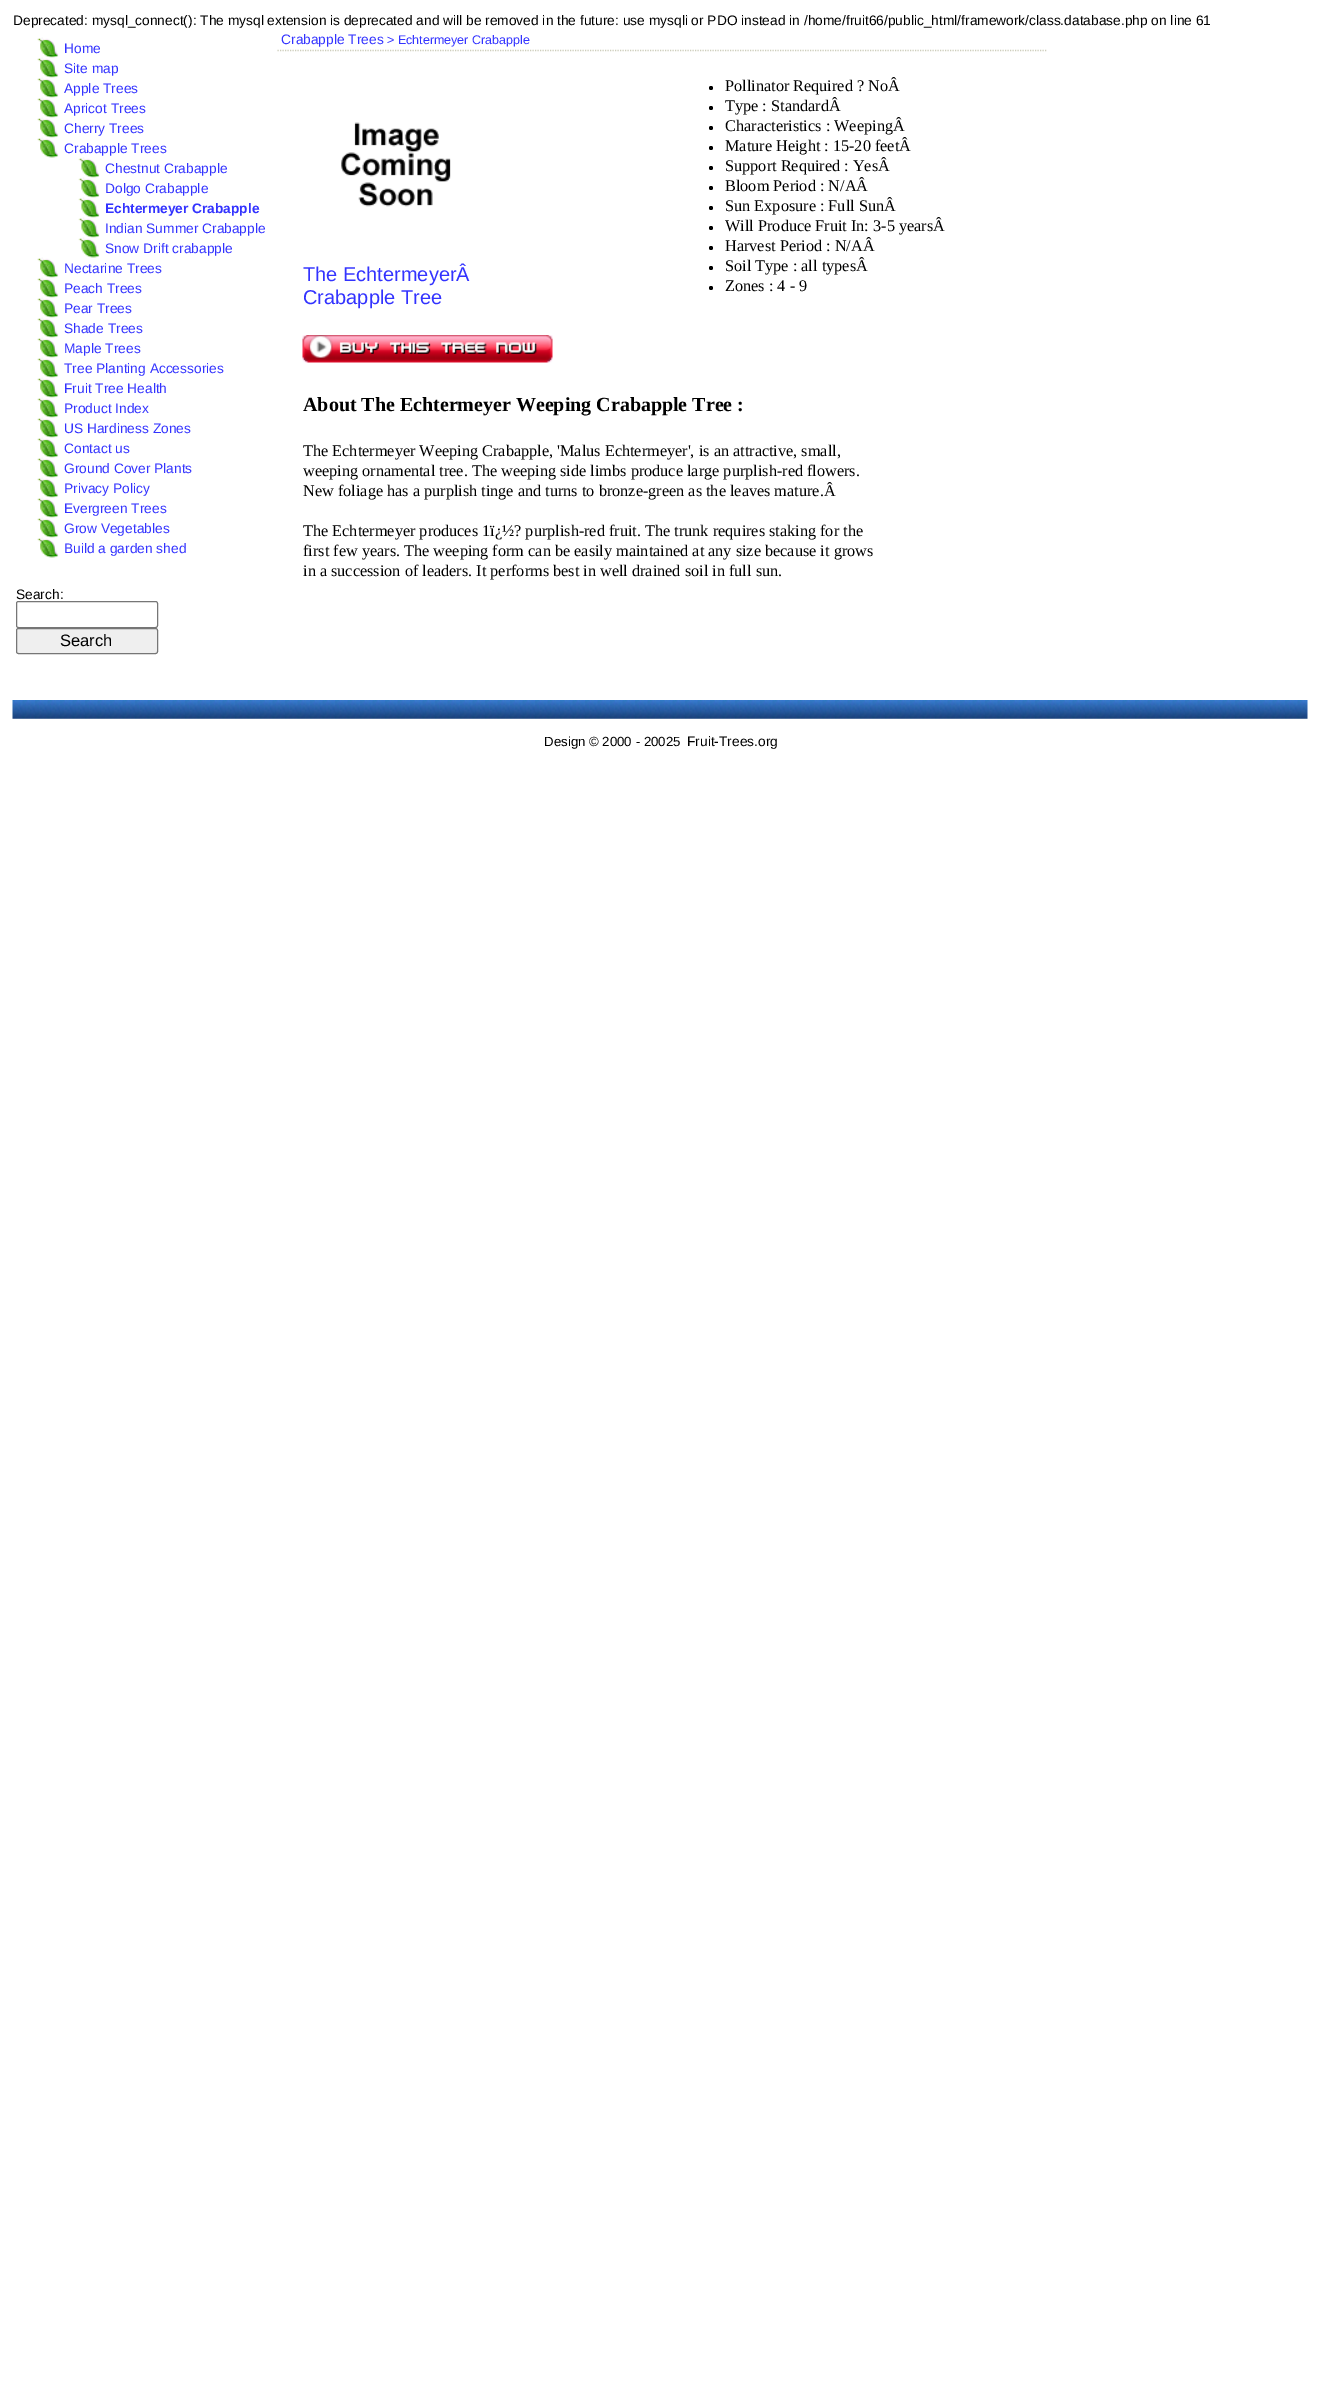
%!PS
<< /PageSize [1320 2393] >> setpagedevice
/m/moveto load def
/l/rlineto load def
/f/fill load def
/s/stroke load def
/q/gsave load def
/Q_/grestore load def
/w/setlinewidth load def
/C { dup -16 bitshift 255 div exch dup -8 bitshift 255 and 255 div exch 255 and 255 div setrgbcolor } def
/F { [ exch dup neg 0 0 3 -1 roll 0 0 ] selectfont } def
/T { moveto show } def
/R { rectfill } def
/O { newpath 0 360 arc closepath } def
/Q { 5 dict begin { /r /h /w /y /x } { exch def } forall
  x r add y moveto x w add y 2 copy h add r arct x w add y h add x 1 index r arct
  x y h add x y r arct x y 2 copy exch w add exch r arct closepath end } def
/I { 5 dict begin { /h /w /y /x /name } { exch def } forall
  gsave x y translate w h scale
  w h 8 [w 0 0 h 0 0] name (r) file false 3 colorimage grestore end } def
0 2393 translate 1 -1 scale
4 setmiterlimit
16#FFFFFF C
0 0 1320 2393 R
/LiberationSans-Regular 13.75 F
16#000000 C
(Deprecated: mysql_connect\(\): The mysql extension is deprecated and will be removed in the future: use mysqli or PDO instead in /home/fruit66/public_html/framework/class.database.php on line 61) 13 25 T
(1.rgb) 37 37 22 21 I
16#3333FF C
(Home) 64 53 T
(2.rgb) 37 57 22 21 I
(Site map) 64 73 T
(2.rgb) 37 77 22 21 I
(Apple Trees) 64 93 T
(2.rgb) 37 97 22 21 I
(Apricot Trees) 64 113 T
(2.rgb) 37 117 22 21 I
(Cherry Trees) 64 133 T
(2.rgb) 37 137 22 21 I
(Crabapple Trees) 64 153 T
(3.rgb) 78 157 22 21 I
(Chestnut Crabapple) 105 173 T
(4.rgb) 78 177 22 21 I
(Dolgo Crabapple) 105 193 T
(4.rgb) 78 197 22 21 I
/LiberationSans-Bold 13.75 F
(Echtermeyer Crabapple) 105 213 T
(4.rgb) 78 217 22 21 I
/LiberationSans-Regular 13.75 F
(Indian Summer Crabapple) 105 233 T
(4.rgb) 78 237 22 21 I
(Snow Drift crabapple) 105 253 T
(1.rgb) 37 257 22 21 I
(Nectarine Trees) 64 273 T
(2.rgb) 37 277 22 21 I
(Peach Trees) 64 293 T
(2.rgb) 37 297 22 21 I
(Pear Trees) 64 313 T
(2.rgb) 37 317 22 21 I
(Shade Trees) 64 333 T
(2.rgb) 37 337 22 21 I
(Maple Trees) 64 353 T
(2.rgb) 37 357 22 21 I
(Tree Planting Accessories) 64 373 T
(2.rgb) 37 377 22 21 I
(Fruit Tree Health) 64 393 T
(2.rgb) 37 397 22 21 I
(Product Index) 64 413 T
(2.rgb) 37 417 22 21 I
(US Hardiness Zones) 64 433 T
(2.rgb) 37 437 22 21 I
(Contact us) 64 453 T
(2.rgb) 37 457 22 21 I
(Ground Cover Plants) 64 473 T
(2.rgb) 37 477 22 21 I
(Privacy Policy) 64 493 T
(2.rgb) 37 497 22 21 I
(Evergreen Trees) 64 513 T
(2.rgb) 37 517 22 21 I
(Grow Vegetables) 64 533 T
(2.rgb) 37 537 22 21 I
(Build a garden shed) 64 553 T
16#000000 C
(Search:) 16 599 T
16#767676 C
16.5 601.5 141 26 2 Q s
16#EFEFEF C
16.5 628.5 141 25 2 Q q f Q_
16#767676 C
s
/LiberationSans-Regular 16.5 F
16#000000 C
(Search) 60 646 T
16#CDCDBB C
1.2 w
[1.25 1.25] 0 setdash
277.5 50.5 m 770 0 l s
/LiberationSans-Regular 13.75 F
16#3333FF C
(Crabapple Trees) 281 44 T
/LiberationSans-Regular 12.5 F
(> Echtermeyer Crabapple) 387 44 T
(5.rgb) 341 122 110 85 I
/LiberationSans-Regular 20 F
(The EchtermeyerÂ) 303 281 T
(Crabapple Tree) 303 304 T
16#000000 C
711 88 2 O f
/LiberationSerif-Regular 16.25 F
(Pollinator Required ? NoÂ) 725 91 T
711 108 2 O f
(Type : StandardÂ) 725 111 T
711 128 2 O f
(Characteristics : WeepingÂ) 725 131 T
711 148 2 O f
(Mature Height : 15-20 feetÂ) 725 151 T
711 168 2 O f
(Support Required : YesÂ) 725 171 T
711 188 2 O f
(Bloom Period : N/AÂ) 725 191 T
711 208 2 O f
(Sun Exposure : Full SunÂ) 725 211 T
711 228 2 O f
(Will Produce Fruit In: 3-5 yearsÂ) 725 231 T
711 248 2 O f
(Harvest Period : N/AÂ) 725 251 T
711 268 2 O f
(Soil Type : all typesÂ) 725 271 T
711 288 2 O f
(Zones : 4 - 9) 725 291 T
(6.rgb) 302 335 251 28 I
/LiberationSerif-Bold 20 F
(About The Echtermeyer Weeping Crabapple Tree :) 303 411 T
/LiberationSerif-Regular 16.25 F
(The Echtermeyer Weeping Crabapple, 'Malus Echtermeyer', is an attractive, small,) 303 456 T
(weeping ornamental tree. The weeping side limbs produce large purplish-red flowers.) 303 476 T
(New foliage has a purplish tinge and turns to bronze-green as the leaves mature.Â) 303 496 T
(The Echtermeyer produces 1ï¿½? purplish-red fruit. The trunk requires staking for the) 303 536 T
(first few years. The weeping form can be easily maintained at any size because it grows) 303 556 T
(in a succession of leaders. It performs best in well drained soil in full sun.) 303 576 T
(7.rgb) 12 700 1296 19 I
/LiberationSans-Regular 13.25 F
(Design © 2000 - 20025) 544 746 T
/LiberationSans-Regular 13.75 F
(Fruit-Trees.org) 687 746 T
showpage
